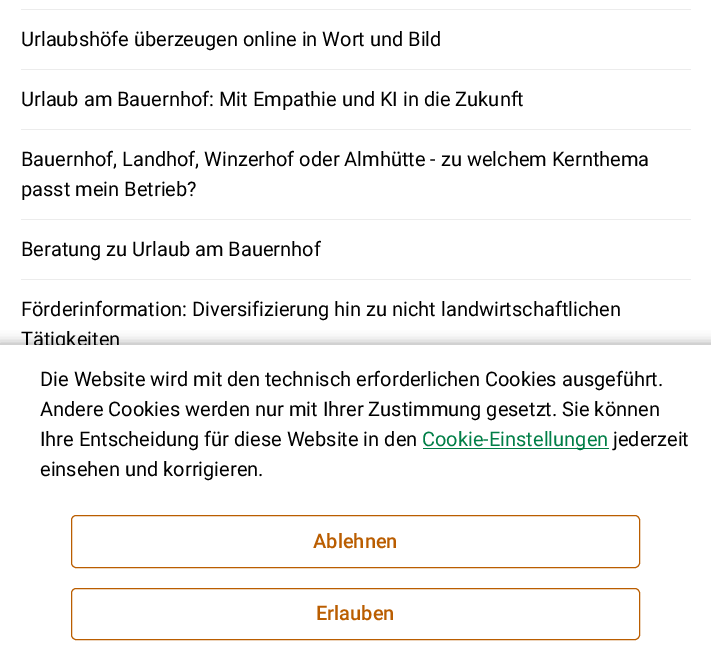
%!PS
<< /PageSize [711 650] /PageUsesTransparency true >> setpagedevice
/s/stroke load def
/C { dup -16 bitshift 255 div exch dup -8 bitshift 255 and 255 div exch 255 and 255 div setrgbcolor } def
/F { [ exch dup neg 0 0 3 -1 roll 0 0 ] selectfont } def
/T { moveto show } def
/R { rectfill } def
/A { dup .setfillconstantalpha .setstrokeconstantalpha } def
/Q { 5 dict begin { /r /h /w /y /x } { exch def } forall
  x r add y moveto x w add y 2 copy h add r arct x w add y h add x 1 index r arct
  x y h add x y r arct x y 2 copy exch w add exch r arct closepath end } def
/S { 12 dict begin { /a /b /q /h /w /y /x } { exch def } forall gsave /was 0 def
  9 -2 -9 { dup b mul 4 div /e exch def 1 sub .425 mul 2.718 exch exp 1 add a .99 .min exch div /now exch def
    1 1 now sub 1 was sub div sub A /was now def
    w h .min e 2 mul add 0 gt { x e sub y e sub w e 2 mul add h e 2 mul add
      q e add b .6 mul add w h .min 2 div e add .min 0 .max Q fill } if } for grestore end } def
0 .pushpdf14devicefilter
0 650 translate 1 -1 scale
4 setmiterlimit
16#FFFFFF C
0 0 711 650 R
16#ECECEC C
21 9 670 1 R
/Roboto-Regular 20 F
16#000000 C
(Urlaubshöfe überzeugen online in Wort und Bild) 21 46 T
16#ECECEC C
21 69 670 1 R
16#000000 C
(Urlaub am Bauernhof: Mit Empathie und KI in die Zukunft) 21 106 T
16#ECECEC C
21 129 670 1 R
16#000000 C
(Bauernhof, Landhof, Winzerhof oder Almhütte - zu welchem Kernthema) 21 166 T
(passt mein Betrieb?) 21 196 T
16#ECECEC C
21 219 670 1 R
16#000000 C
(Beratung zu Urlaub am Bauernhof) 21 256 T
16#ECECEC C
21 279 670 1 R
16#000000 C
(Förderinformation: Diversifizierung hin zu nicht landwirtschaftlichen) 21 316 T
(Tätigkeiten) 21 346 T
-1 344 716 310 0 6 .35 S
16#FFFFFF C
0 345 711 305 R
16#000000 C
(Die Website wird mit den technisch erforderlichen Cookies ausgeführt.) 40 386 T
(Andere Cookies werden nur mit Ihrer Zustimmung gesetzt. Sie können) 40 416 T
(Ihre Entscheidung für diese Website in den) 40 446 T
16#007E46 C
423 448 186 1 R
(Cookie-Einstellungen) 422 446 T
16#000000 C
(jederzeit) 613 446 T
(einsehen und korrigieren.) 40 476 T
16#BA5D00 C
71.5 515.5 568 52 4.5 Q s
/Roboto-Medium 20 F
(Ablehnen) 313 548 T
71.5 588.5 568 51 4.5 Q s
(Erlauben) 316 620 T
.poppdf14devicefilter showpage
